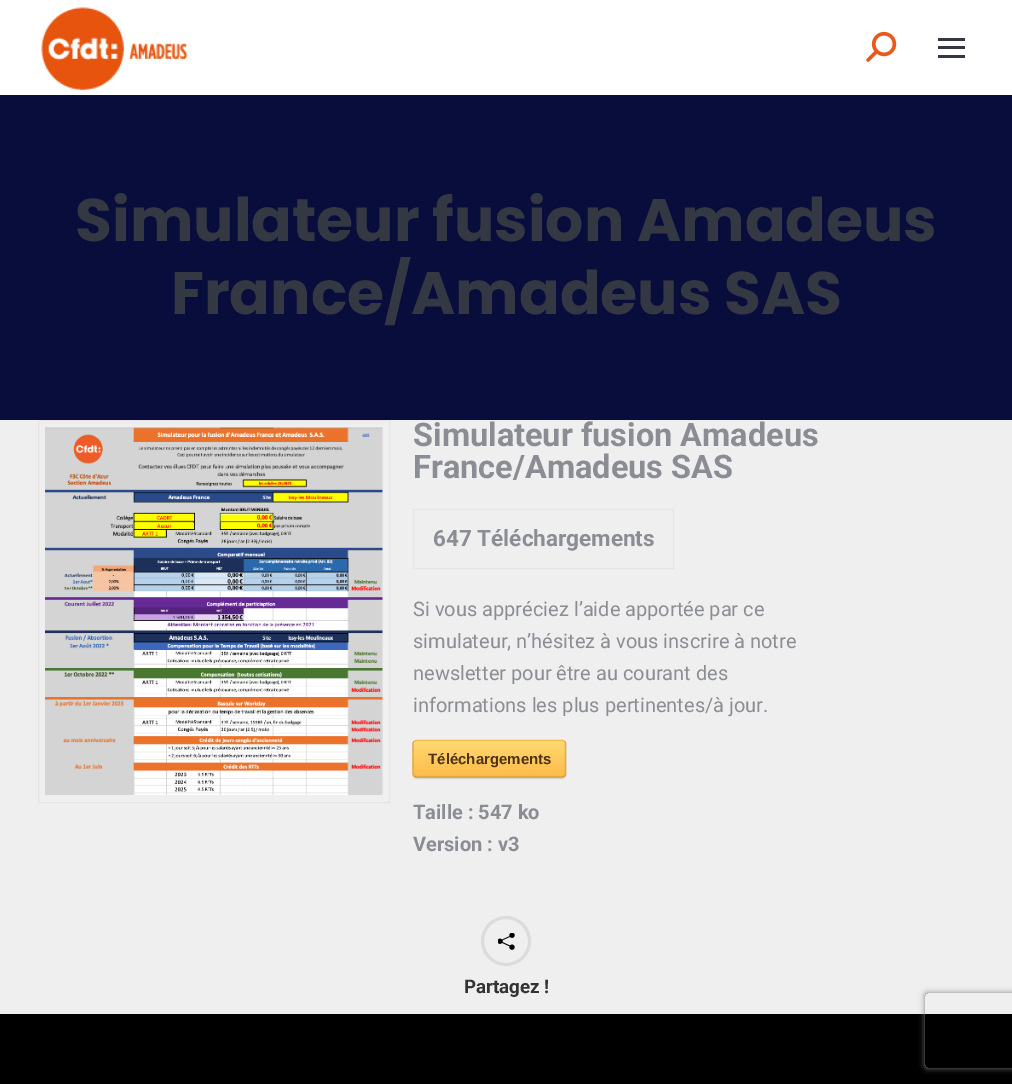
%!PS
<< /PageSize [1012 1084] /PageUsesTransparency true >> setpagedevice
/m/moveto load def
/l/rlineto load def
/c/rcurveto load def
/z/closepath load def
/f/fill load def
/s/stroke load def
/q/gsave load def
/Q_/grestore load def
/w/setlinewidth load def
/C { dup -16 bitshift 255 div exch dup -8 bitshift 255 and 255 div exch 255 and 255 div setrgbcolor } def
/F { [ exch dup neg 0 0 3 -1 roll 0 0 ] selectfont } def
/T { moveto show } def
/R { rectfill } def
/A { dup .setfillconstantalpha .setstrokeconstantalpha } def
/O { newpath 0 360 arc closepath } def
/Q { 5 dict begin { /r /h /w /y /x } { exch def } forall
  x r add y moveto x w add y 2 copy h add r arct x w add y h add x 1 index r arct
  x y h add x y r arct x y 2 copy exch w add exch r arct closepath end } def
/S { 12 dict begin { /a /b /q /h /w /y /x } { exch def } forall gsave /was 0 def
  9 -2 -9 { dup b mul 4 div /e exch def 1 sub .425 mul 2.718 exch exp 1 add a .99 .min exch div /now exch def
    1 1 now sub 1 was sub div sub A /was now def
    w h .min e 2 mul add 0 gt { x e sub y e sub w e 2 mul add h e 2 mul add
      q e add b .6 mul add w h .min 2 div e add .min 0 .max Q fill } if } for grestore end } def
/I { 5 dict begin { /h /w /y /x /name } { exch def } forall
  gsave x y translate w h scale
  w h 8 [w 0 0 h 0 0] name (r) file false 3 colorimage grestore end } def
0 .pushpdf14devicefilter
0 1084 translate 1 -1 scale
4 setmiterlimit
16#EFEFF0 C
0 0 1012 1084 R
16#090D3C C
0 95 1012 325 R
16#000000 C
-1 -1 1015 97 0 9.5 .07 S
16#FFFFFF C
0 0 1012 95 R
(1.rgb) 41 7 147 84 I
(2.rgb) 866 31 31 31 I
16#333843 C
938 38 27 3 R
938 46 27 3 R
938 55 27 3 R
/Poppins-Bold 60 F
(Simulateur fusion Amadeus) 75 241 T
(France/Amadeus SAS) 171 314 T
16#E8E4E3 C
38.5 420.5 351 382 rectstroke
(3.rgb) 45 427 338 368 I
/Roboto-Bold 32.5 F
16#8B8D94 C
(Simulateur fusion Amadeus) 413 446 T
(France/Amadeus SAS) 413 478 T
16#E8E4E3 C
413.5 509.5 260 59 rectstroke
/Roboto-Bold 22.5 F
16#8B8D94 C
(647 Téléchargements) 433 546 T
/Roboto-Regular 20 F
(Si vous appréciez l’aide apportée par ce) 413 616 T
(simulateur, n’hésitez à vous inscrire à notre) 413 648 T
(newsletter pour être au courant des) 413 680 T
(informations les plus pertinentes/à jour.) 413 712 T
16#D3D3D3 C
413 741 153 38 4 .5 1 S
q
413 740 153 38 4 Q clip newpath
q 413 741 m 153 0 l 0 35 l -153 0 l z clip newpath
<< /ShadingType 2 /ColorSpace /DeviceRGB /Coords [414 741 414 776] /Extend [true true] /Function << /FunctionType 2 /Domain [0 1] /C0 [.996 .855 .443] /C1 [.996 .733 .29] /N 1 >> >> shfill Q_
q 413 776 m 153 0 l 0 2 l -153 0 l z clip newpath
<< /ShadingType 2 /ColorSpace /DeviceRGB /Coords [414 776 414 811] /Extend [true true] /Function << /FunctionType 2 /Domain [0 1] /C0 [.996 .855 .443] /C1 [.996 .733 .29] /N 1 >> >> shfill Q_
Q_
16#FEE395 C
416 742 m 146 0 l 2 0 3 2 3 3 c 0 -2 0 -4 -2 -4 c -147 0 l -2 0 -2 2 -2 4 c 0 -1 1 -3 2 -3 c z f
16#F5B74E C
1.2 w
414 741.5 m 2 -1 l 122 0 l 24.5 0 l 2 1 l s
16#E5A73E C
564.5 741.5 m 1 .5 1 1.5 1 2.5 c 0 30 l 0 .5 0 1.5 -1 2 c s
16#D6982F C
564.5 776 m -2 1 l -146.5 0 l -2 -1 l s
16#E5A73E C
414 776 m -.5 -.5 -1 -1.5 -1 -2 c 0 -30 l 0 -1 .5 -2 1 -2.5 c s
/LiberationSans-Bold 15 F
16#4D3217 C
(Téléchargements) 428 764 T
/Roboto-Bold 20 F
16#8B8D94 C
(Taille : 547 ko) 413 819 T
(Version : v3) 413 851 T
16#DCDCDD C
3 w
506 941 23.5 O s
(4.rgb) 498 933 17 17 I
/Roboto-Bold 18.75 F
16#333333 C
(Partagez !) 464 993 T
16#000000 C
0 1014 1012 70 R
q
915 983 m 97 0 l 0 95 l -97 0 l z 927.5 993 m 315 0 l 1.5 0 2.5 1 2.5 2.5 c 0 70 l 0 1.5 -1 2.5 -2.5 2.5 c -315 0 l -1.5 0 -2.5 -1 -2.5 -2.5 c 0 -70 l 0 -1.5 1 -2.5 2.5 -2.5 c z eoclip newpath
16#808080 C
925 993 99 75 2.5 3 1 S
Q_
.poppdf14devicefilter showpage
